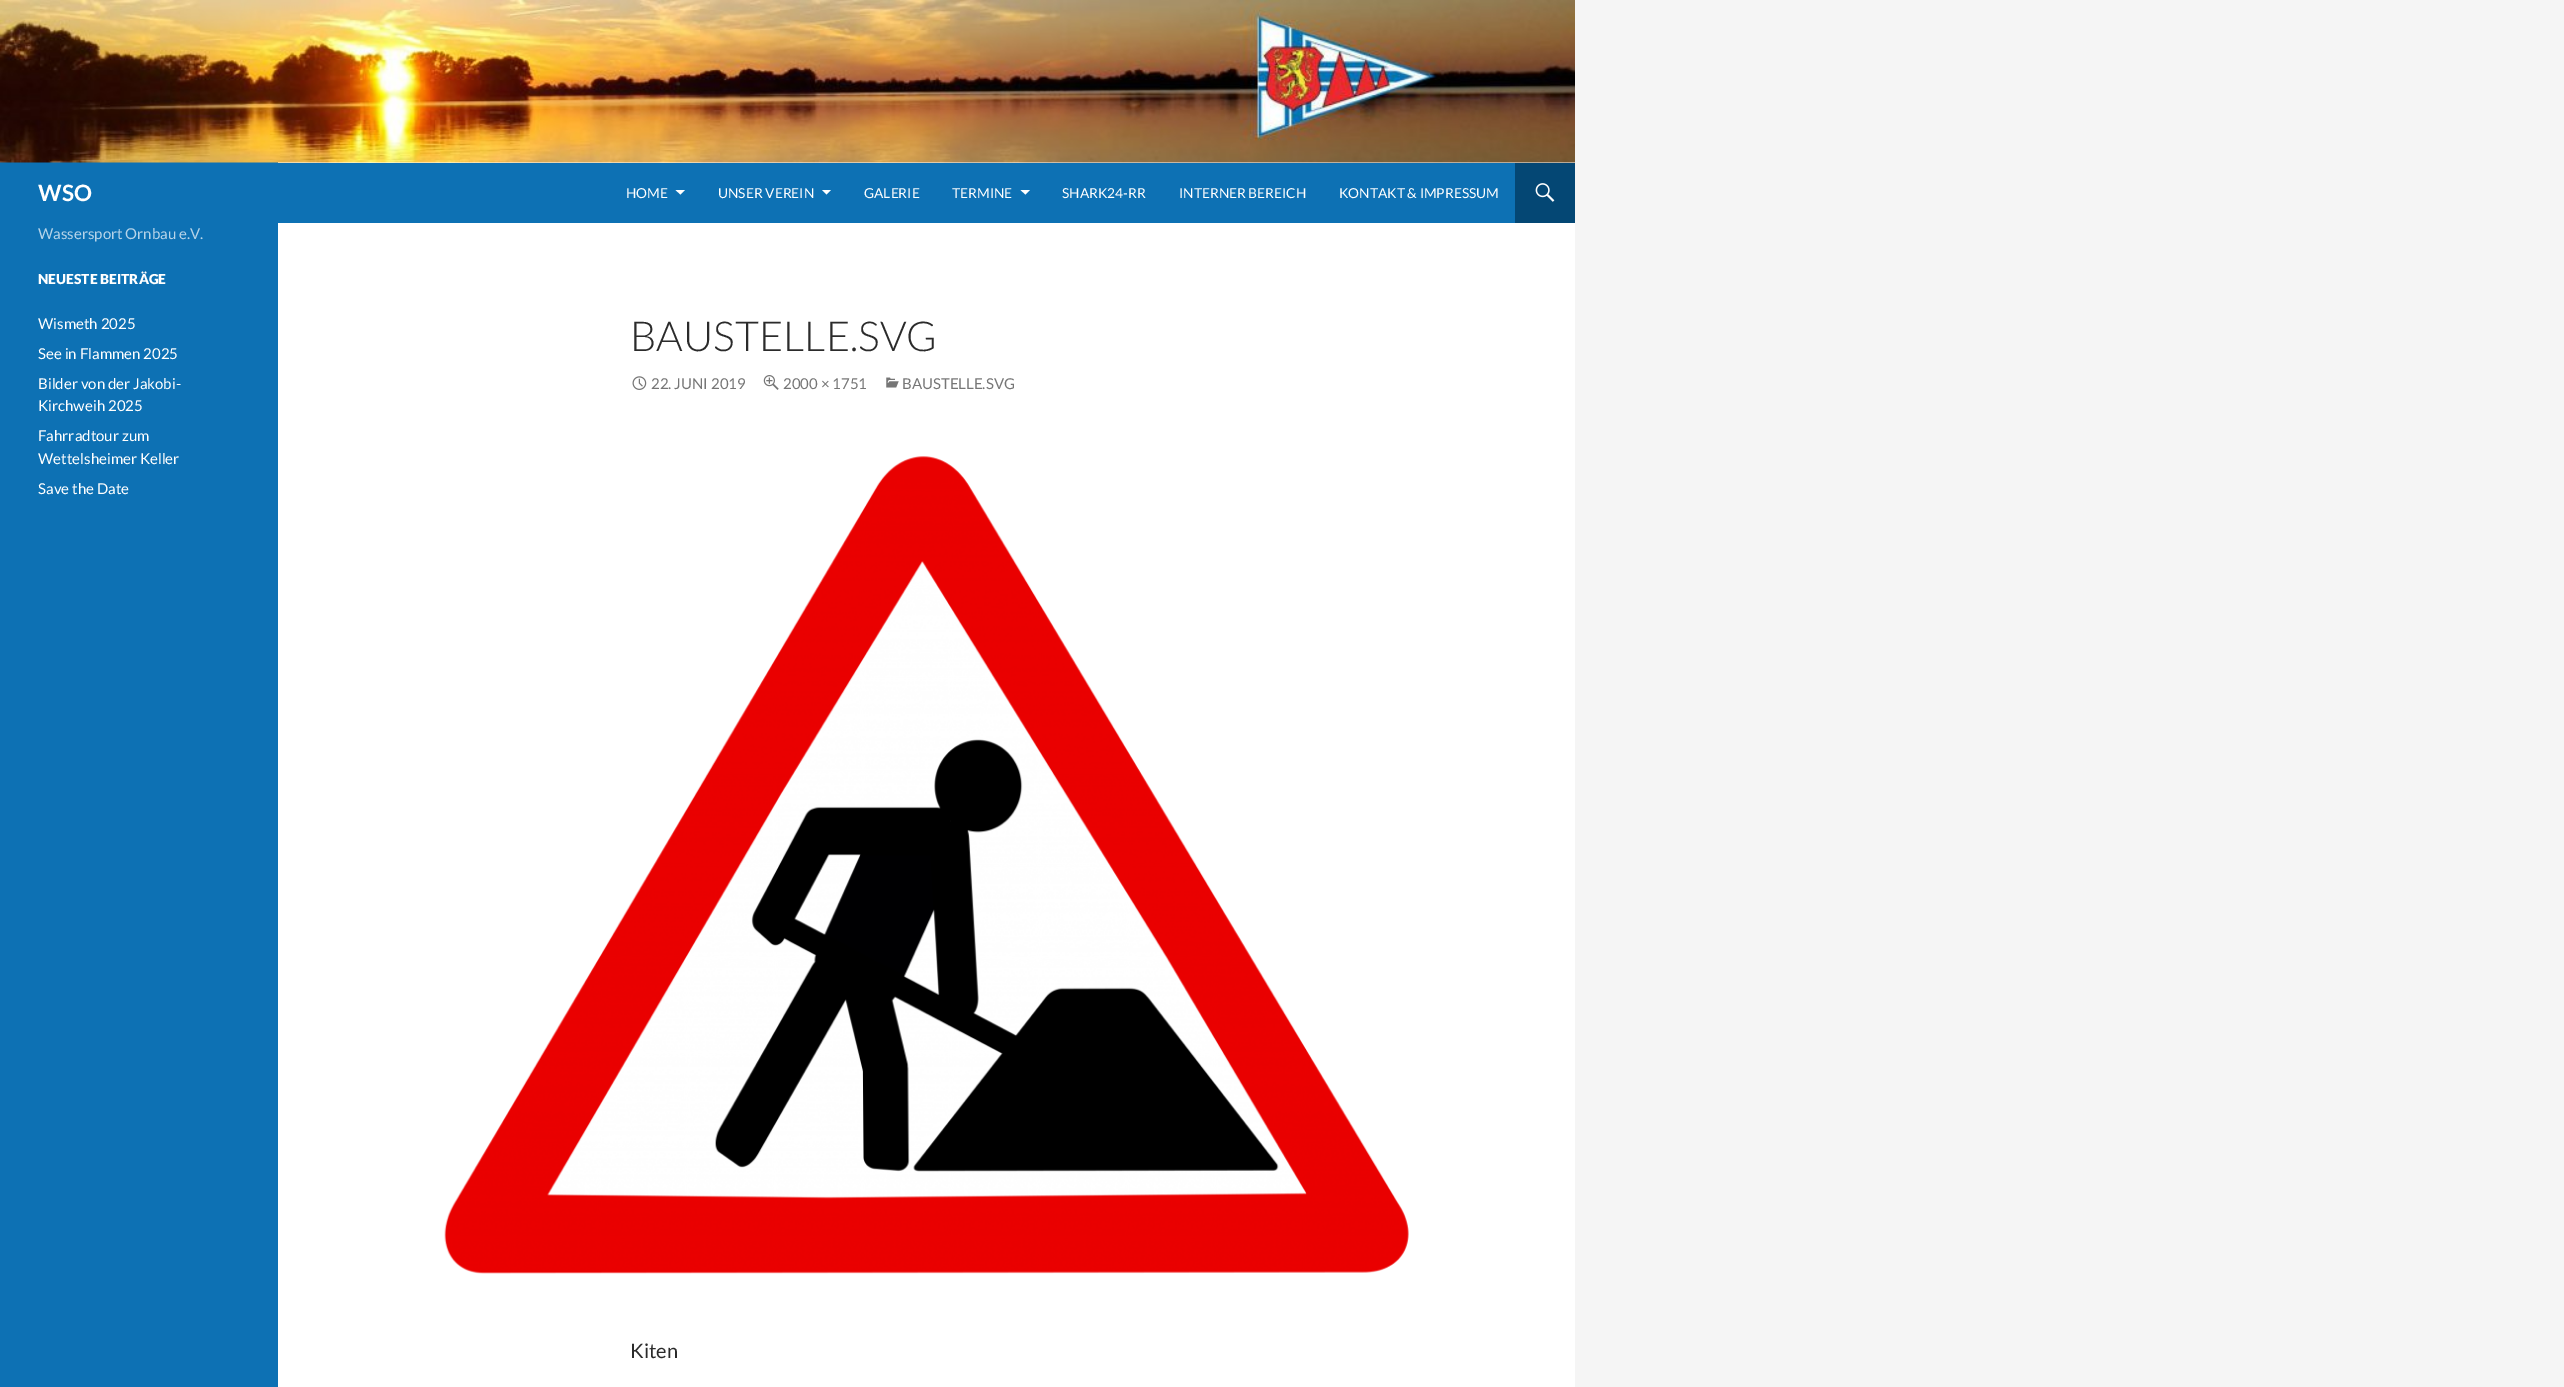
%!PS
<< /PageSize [2564 1387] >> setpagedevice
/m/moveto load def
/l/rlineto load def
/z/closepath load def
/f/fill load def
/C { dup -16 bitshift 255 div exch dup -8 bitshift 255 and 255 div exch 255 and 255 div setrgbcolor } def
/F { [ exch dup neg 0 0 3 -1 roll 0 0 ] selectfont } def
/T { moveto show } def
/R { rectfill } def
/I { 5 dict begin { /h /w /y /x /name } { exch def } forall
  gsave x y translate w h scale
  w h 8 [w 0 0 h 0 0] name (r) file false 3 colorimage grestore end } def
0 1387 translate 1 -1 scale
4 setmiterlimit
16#F5F5F5 C
0 0 2564 1387 R
16#FFFFFF C
278 162 1297 1225 R
16#0D71B4 C
0 162 278 1225 R
(1.rgb) 0 0 1575 163 I
278 163 1237 60 R
/Lato-Bold 22.5 F
16#FFFFFF C
(WSO) 38 201 T
/Lato-Regular 13.75 F
(HOME) 626 198 T
675.5 190 m 5 4.5 l 4.5 -4.5 l z f
(UNSER VEREIN) 718 198 T
822 190 m 4.5 4.5 l 4.5 -4.5 l z f
(GALERIE) 864 198 T
(TERMINE) 952 198 T
1020.5 190 m 5 4.5 l 4.5 -4.5 l z f
(SHARK24-RR) 1062 198 T
(INTERNER BEREICH) 1179 198 T
(KONTAKT & IMPRESSUM) 1339 198 T
16#044774 C
1515 163 60 60 R
(2.rgb) 1535 183 20 19 I
/Lato-Regular 15 F
16#B6D4E9 C
(Wassersport Ornbau e.V.) 38 239 T
/Lato-Black 13.75 F
16#FFFFFF C
(NEUESTE BEITRÄGE) 38 284 T
/Lato-Regular 15 F
(Wismeth 2025) 38 329 T
(See in Flammen 2025) 38 359 T
(Bilder von der Jakobi-) 38 389 T
(Kirchweih 2025) 38 411 T
(Fahrradtour zum) 38 441 T
(Wettelsheimer Keller) 38 464 T
(Save the Date) 38 494 T
/Lato-Light 41.25 F
16#2B2B2B C
(BAUSTELLE.SVG) 630 351 T
(3.rgb) 632 376 15 14 I
/Lato-Regular 15 F
16#767676 C
(22. JUNI 2019) 651 389 T
(4.rgb) 763 375 16 15 I
(2000 × 1751) 783 389 T
(5.rgb) 886 377 13 11 I
(BAUSTELLE.SVG) 902 389 T
(6.rgb) 444 456 965 818 I
/Lato-Regular 20 F
16#2B2B2B C
(Kiten) 630 1358 T
showpage
